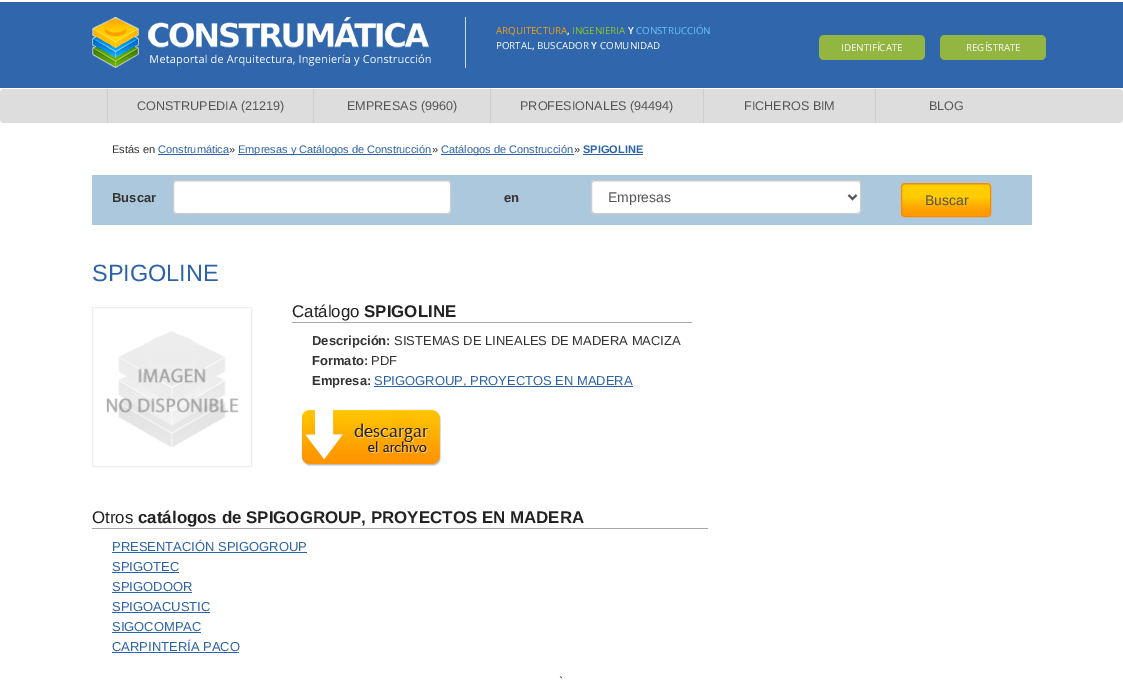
%!PS
<< /PageSize [1123 692] >> setpagedevice
/m/moveto load def
/l/rlineto load def
/c/rcurveto load def
/z/closepath load def
/f/fill load def
/s/stroke load def
/w/setlinewidth load def
/C { dup -16 bitshift 255 div exch dup -8 bitshift 255 and 255 div exch 255 and 255 div setrgbcolor } def
/F { [ exch dup neg 0 0 3 -1 roll 0 0 ] selectfont } def
/T { moveto show } def
/R { rectfill } def
/Q { 5 dict begin { /r /h /w /y /x } { exch def } forall
  x r add y moveto x w add y 2 copy h add r arct x w add y h add x 1 index r arct
  x y h add x y r arct x y 2 copy exch w add exch r arct closepath end } def
/I { 5 dict begin { /h /w /y /x /name } { exch def } forall
  gsave x y translate w h scale
  w h 8 [w 0 0 h 0 0] name (r) file false 3 colorimage grestore end } def
0 692 translate 1 -1 scale
4 setmiterlimit
16#FFFFFF C
0 0 1123 692 R
16#3067AC C
0 2 1123 86 R
16#CCDCED C
465 17 1 51 R
(1.rgb) 92 17 339 51 I
/OpenSans-Regular 9.75 F
16#FB9F0C C
(ARQUITECTURA) 496 34 T
/OpenSans-SemiBold 9.75 F
16#FFFFFF C
(,) 567 34 T
/OpenSans-Regular 9.75 F
16#91C822 C
(INGENIERIA) 572 34 T
/OpenSans-SemiBold 9.75 F
16#FFFFFF C
(Y) 628 34 T
/OpenSans-Regular 9.75 F
16#66C6F8 C
(CONSTRUCCIÓN) 636 34 T
16#FFFFFF C
(PORTAL) 496 49 T
/OpenSans-SemiBold 9.75 F
(,) 532 49 T
/OpenSans-Regular 9.75 F
(BUSCADOR) 537 49 T
/OpenSans-SemiBold 9.75 F
(Y) 591 49 T
/OpenSans-Regular 9.75 F
(COMUNIDAD) 600 49 T
16#92B641 C
819 35 106 25 5 Q f
16#FFFFFF C
(IDENTIFÍCATE) 841 51 T
16#92B641 C
940 35 106 25 5 Q f
16#FFFFFF C
(REGÍSTRATE) 966 51 T
16#DDDDDD C
0 89 1123 34 4 Q f
16#CDCDCD C
107 89 1 34 R
/LiberationSans-Regular 12.6 F
16#555555 C
(CONSTRUPEDIA \(21219\)) 137 110 T
16#CDCDCD C
313 89 1 34 R
16#555555 C
(EMPRESAS \(9960\)) 347 110 T
16#CDCDCD C
490 89 1 34 R
16#555555 C
(PROFESIONALES \(94494\)) 520 110 T
16#CDCDCD C
703 89 1 34 R
16#555555 C
(FICHEROS BIM) 744 110 T
16#CDCDCD C
875 89 1 34 R
16#555555 C
(BLOG) 929 110 T
/LiberationSans-Regular 11 F
16#333333 C
(Estás en) 112 153 T
16#2B62A8 C
(Construmática) 158 153 T
158 154 71 1 R
16#333333 C
(») 229 153 T
16#2B62A8 C
238 154 194 1 R
(Empresas y Catálogos de Construcción) 238 153 T
16#333333 C
(») 432 153 T
16#2B62A8 C
441 154 133 1 R
(Catálogos de Construcción) 441 153 T
16#333333 C
(») 574 153 T
/LiberationSans-Bold 11 F
16#2B62A8 C
(SPIGOLINE) 583 153 T
583 154 60 1 R
16#ACC8DD C
92 175 940 50 R
/LiberationSans-Bold 13 F
16#333333 C
(Buscar) 112 202 T
16#FFFFFF C
173 180 278 34 4 Q f
16#ECECEC C
177 182 m 270 0 l 2 0 3 1 3 3 c 0 -1 l 0 -2 -1 -3 -3 -3 c -270 0 l -2 0 -3 1 -3 3 c 0 1 l 0 -2 1 -3 3 -3 c z f
16#CCCCCC C
173.5 180.5 277 33 3.5 Q s
16#333333 C
(en) 504 202 T
16#FFFFFF C
591 180 270 34 4 Q f
16#ECECEC C
595 182 m 262 0 l 2 0 3 1 3 3 c 0 -2 -1 -4 -3 -4 c -262 0 l -2 0 -3 2 -3 4 c 0 -2 1 -3 3 -3 c z f
16#CCCCCC C
591.5 180.5 269 33 3.5 Q s
16#555555 C
2 w
848.5 195 m 4 4 l 4 -4 l s
/LiberationSans-Regular 14 F
(Empresas) 608 202 T
16#FFCC00 C
901 183 90 34 4 Q f
(2.rgb) 901 198 90 18 I
16#ECBD00 C
905 185 m 82 0 l 2 0 3 1 3 3 c 0 -8 -13 -4 -17 -4 c -54 0 l -4 0 -17 -4 -17 4 c 0 -2 1 -3 3 -3 c z f
16#FF8800 C
1 w
901.5 183.5 89 33 3.5 Q s
16#555555 C
(Buscar) 925 205 T
/LiberationSans-Regular 23.5 F
16#2B62A8 C
(SPIGOLINE) 92 281 T
16#EEEEEE C
92.5 307.5 159 159 rectstroke
(3.rgb) 106 331 133 116 I
16#AAAAAA C
292 322 400 1 R
/LiberationSans-Regular 16.9 F
16#222222 C
(Catálogo) 292 317 T
/LiberationSans-Bold 16.9 F
(SPIGOLINE) 364 317 T
/LiberationSans-Bold 13 F
16#333333 C
(Descripción:) 312 345 T
/LiberationSans-Regular 13 F
(SISTEMAS DE LINEALES DE MADERA MACIZA) 394 345 T
/LiberationSans-Bold 13 F
(Formato:) 312 365 T
/LiberationSans-Regular 13 F
(PDF) 371 365 T
/LiberationSans-Bold 13 F
(Empresa:) 312 385 T
16#2B62A8 C
374 386 259 1 R
/LiberationSans-Regular 13 F
(SPIGOGROUP, PROYECTOS EN MADERA) 374 385 T
(4.rgb) 302 409 139 57 I
16#AAAAAA C
92 528 616 1 R
/LiberationSans-Regular 16.9 F
16#222222 C
(Otros) 92 523 T
/LiberationSans-Bold 16.9 F
(catálogos de SPIGOGROUP, PROYECTOS EN MADERA) 138 523 T
/LiberationSans-Regular 13 F
16#2B62A8 C
(PRESENTACIÓN SPIGOGROUP) 112 551 T
112 552 195 1 R
(SPIGOTEC) 112 571 T
112 572 67 1 R
(SPIGODOOR) 112 591 T
112 592 80 1 R
(SPIGOACUSTIC) 112 611 T
112 612 98 1 R
(SIGOCOMPAC) 112 631 T
112 632 89 1 R
(CARPINTERÍA PACO) 112 651 T
112 652 127 1 R
16#333333 C
(`) 559 686 T
showpage
